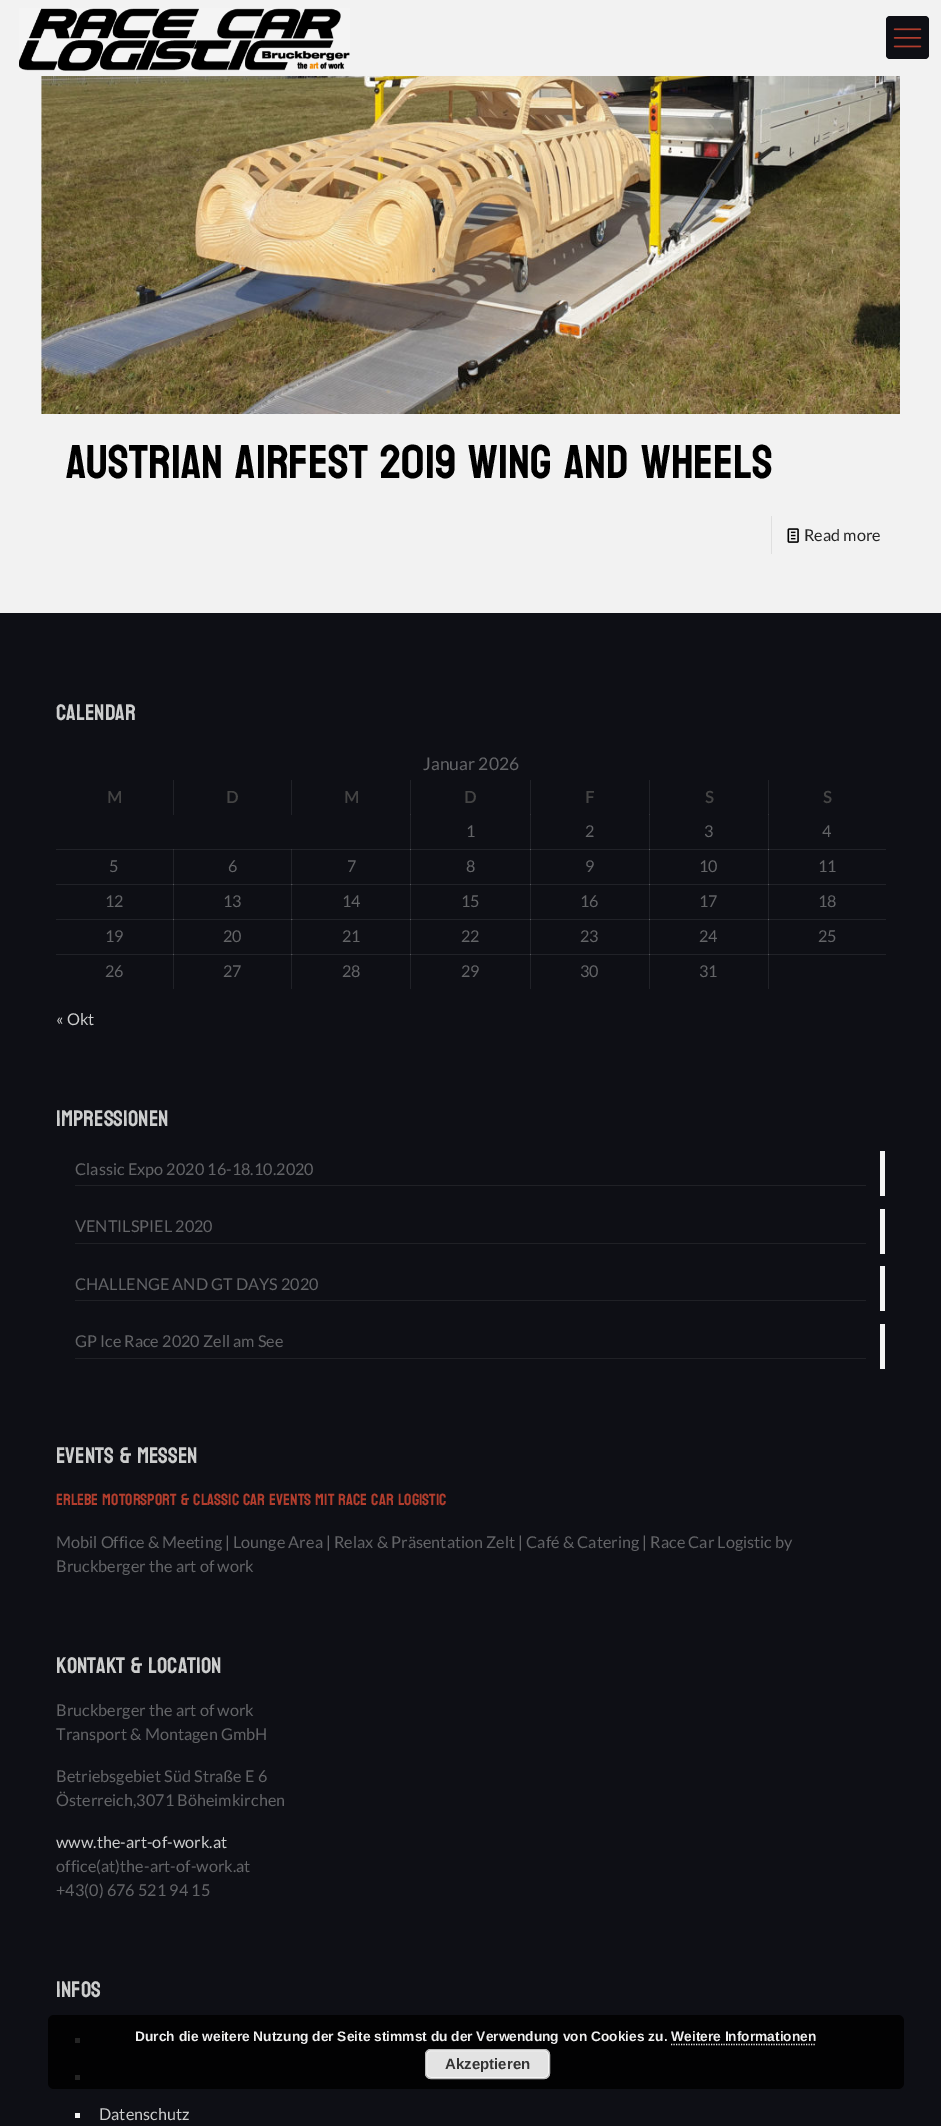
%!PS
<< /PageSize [941 2126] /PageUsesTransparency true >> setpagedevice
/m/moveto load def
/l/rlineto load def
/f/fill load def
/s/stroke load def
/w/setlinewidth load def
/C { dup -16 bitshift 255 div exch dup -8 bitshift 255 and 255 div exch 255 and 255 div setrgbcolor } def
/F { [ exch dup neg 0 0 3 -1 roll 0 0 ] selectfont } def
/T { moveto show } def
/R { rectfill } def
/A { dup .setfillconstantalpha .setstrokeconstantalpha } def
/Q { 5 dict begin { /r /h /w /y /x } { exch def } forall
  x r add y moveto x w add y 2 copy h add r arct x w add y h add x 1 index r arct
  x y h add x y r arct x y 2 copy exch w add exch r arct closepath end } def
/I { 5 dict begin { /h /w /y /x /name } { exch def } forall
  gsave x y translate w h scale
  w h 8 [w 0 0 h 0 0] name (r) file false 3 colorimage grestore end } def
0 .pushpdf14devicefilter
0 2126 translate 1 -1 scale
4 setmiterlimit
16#F2F2F2 C
0 0 941 2126 R
(1.rgb) 19 8 331 63 I
16#0E0F15 C
886 16 43 43 4 Q f
(2.rgb) 893 28 29 20 I
(3.rgb) 41 76 859 338 I
/Koulen-Regular 47.5 F
16#000000 C
(Austrian AIRFEST 2019 WING AND WHEELS) 66 478 T
16#DFDFDF C
771 516 1 38 R
(4.rgb) 787 528 12 15 I
/Lato-Regular 16.25 F
16#252525 C
(Read more) 804 541 T
16#0E0F15 C
0 613 941 1513 R
16#212228 C
410 780 1 35 R
530 780 1 35 R
649 780 1 35 R
768 780 1 35 R
56 849 355 1 R
410 814 1 36 R
16#333439 C
410 814 1 1 R
16#212228 C
410 849 121 1 R
530 814 1 36 R
16#333439 C
530 814 1 1 R
16#212228 C
530 849 120 1 R
649 814 1 36 R
16#333439 C
649 814 1 1 R
16#212228 C
649 849 120 1 R
768 814 1 36 R
16#333439 C
768 814 1 1 R
16#212228 C
768 849 118 1 R
56 884 118 1 R
173 849 1 36 R
16#333439 C
173 849 1 1 R
16#212228 C
173 884 120 1 R
291 849 1 36 R
16#333439 C
291 849 1 1 R
16#212228 C
291 884 120 1 R
16#333439 C
291 884 2 1 R
16#212228 C
410 849 1 36 R
16#525358 C
410 849 1 1 R
16#212228 C
410 884 121 1 R
530 849 1 36 R
16#525358 C
530 849 1 1 R
16#212228 C
530 884 120 1 R
649 849 1 36 R
16#525358 C
649 849 1 1 R
16#212228 C
649 884 120 1 R
768 849 1 36 R
16#525358 C
768 849 1 1 R
16#212228 C
768 884 118 1 R
56 919 118 1 R
173 884 1 36 R
16#525358 C
173 884 1 1 R
16#212228 C
173 919 120 1 R
291 884 1 36 R
16#525358 C
291 884 1 1 R
16#212228 C
291 919 120 1 R
16#333439 C
291 919 2 1 R
16#212228 C
410 884 1 36 R
16#525358 C
410 884 1 1 R
16#212228 C
410 919 121 1 R
530 884 1 36 R
16#525358 C
530 884 1 1 R
16#212228 C
530 919 120 1 R
649 884 1 36 R
16#525358 C
649 884 1 1 R
16#212228 C
649 919 120 1 R
768 884 1 36 R
16#525358 C
768 884 1 1 R
16#212228 C
768 919 118 1 R
56 954 118 1 R
173 919 1 36 R
16#525358 C
173 919 1 1 R
16#212228 C
173 954 120 1 R
291 919 1 36 R
16#525358 C
291 919 1 1 R
16#212228 C
291 954 120 1 R
16#333439 C
291 954 2 1 R
16#212228 C
410 919 1 36 R
16#525358 C
410 919 1 1 R
16#212228 C
410 954 121 1 R
530 919 1 36 R
16#525358 C
530 919 1 1 R
16#212228 C
530 954 120 1 R
649 919 1 36 R
16#525358 C
649 919 1 1 R
16#212228 C
649 954 120 1 R
768 919 1 36 R
16#525358 C
768 919 1 1 R
16#212228 C
768 954 118 1 R
/Koulen-Regular 22.5 F
16#CCCDCD C
(Calendar) 56 720 T
/Lato-Regular 17.5 F
16#636467 C
(Januar 2026) 423 770 T
16#212228 C
173 780 1 35 R
/Lato-Bold 16.25 F
16#444444 C
(M) 107 803 T
16#212228 C
291 780 1 35 R
16#444444 C
(D) 226 803 T
(M) 344 803 T
(D) 464 803 T
(F) 585 803 T
(S) 705 803 T
(S) 823 803 T
/Lato-Regular 16.25 F
16#636467 C
(1) 466 837 T
(2) 585 837 T
(3) 704 837 T
(4) 822 837 T
(5) 109 872 T
(6) 228 872 T
(7) 347 872 T
(8) 466 872 T
(9) 585 872 T
(10) 699 872 T
(11) 818 872 T
(12) 105 907 T
(13) 223 907 T
(14) 342 907 T
(15) 461 907 T
(16) 580 907 T
(17) 699 907 T
(18) 818 907 T
(19) 105 942 T
(20) 223 942 T
(21) 342 942 T
(22) 461 942 T
(23) 580 942 T
(24) 699 942 T
(25) 818 942 T
16#212228 C
173 954 1 35 R
16#525358 C
173 954 1 1 R
16#636467 C
(26) 105 977 T
16#212228 C
291 954 1 35 R
16#525358 C
291 954 1 1 R
16#636467 C
(27) 223 977 T
16#212228 C
410 954 1 35 R
16#525358 C
410 954 1 1 R
16#636467 C
(28) 342 977 T
16#212228 C
530 954 1 35 R
16#525358 C
530 954 1 1 R
16#636467 C
(29) 461 977 T
16#212228 C
649 954 1 35 R
16#525358 C
649 954 1 1 R
16#636467 C
(30) 580 977 T
16#212228 C
768 954 1 35 R
16#525358 C
768 954 1 1 R
16#636467 C
(31) 699 977 T
16#CCCDCD C
(« Okt) 56 1025 T
/Koulen-Regular 22.5 F
(Impressionen) 56 1126 T
16#202126 C
75 1185 791 1 R
/Lato-Regular 16.25 F
16#636467 C
(Classic Expo 2020 16-18.10.2020) 75 1175 T
16#F4F4F4 C
880 1151 5 45 R
16#202126 C
75 1243 791 1 R
16#636467 C
(VENTILSPIEL 2020) 75 1232 T
16#F4F4F4 C
880 1209 5 45 R
16#202126 C
75 1300 791 1 R
16#636467 C
(CHALLENGE AND GT DAYS 2020) 75 1290 T
16#F4F4F4 C
880 1266 5 45 R
16#202126 C
75 1358 791 1 R
16#636467 C
(GP Ice Race 2020 Zell am See) 75 1347 T
16#F4F4F4 C
880 1324 5 45 R
/Koulen-Regular 22.5 F
16#CCCDCD C
(Events & Messen) 56 1463 T
/Koulen-Regular 16.25 F
16#B23D2D C
(Erlebe Motorsport & Classic Car Events mit Race Car Logistic) 56 1505 T
/Lato-Regular 16.25 F
16#636467 C
(Mobil Office & Meeting | Lounge Area | Relax & Präsentation Zelt | Café & Catering | Race Car Logistic by) 56 1548 T
(Bruckberger the art of work) 56 1572 T
/Koulen-Regular 22.5 F
16#CCCDCD C
(Kontakt & Location) 56 1673 T
/Lato-Regular 16.25 F
16#636467 C
(Bruckberger the art of work) 56 1716 T
(Transport & Montagen GmbH) 56 1740 T
(Betriebsgebiet Süd Straße E 6) 56 1782 T
(Österreich,3071 Böheimkirchen) 56 1806 T
16#CCCDCD C
(www.the-art-of-work.at) 56 1848 T
16#636467 C
(office\(at\)the-art-of-work.at) 56 1872 T
(+43\(0\) 676 521 94 15) 56 1896 T
/Koulen-Regular 22.5 F
16#CCCDCD C
(Infos) 56 1997 T
16#F4F4F4 C
75 2038 5 5 R
75 2075 5 5 R
75 2113 5 5 R
/Lato-Regular 16.25 F
16#CCCDCD C
(Datenschutz) 99 2120 T
0.85 A
16#000000 C
48 2015 856 74 6 Q f
/LiberationSans-Bold 13.75 F
1 A
16#EFEFEF C
(Durch die weitere Nutzung der Seite stimmst du der Verwendung von Cookies zu. Weitere Informationen) 135 2041 T
1.2 w
[1.25 1.25] 0 setdash
671 2044.5 m 145 0 l s
16#E3E3E3 C
425 2049 125 30 6 Q f
16#F6F6F6 C
1 w
[] 0 setdash
426.5 2050.5 122 27 4.5 Q s
16#BBBBBB C
425.5 2049.5 124 29 5.5 Q s
/LiberationSans-Bold 15 F
16#333333 C
(Akzeptieren) 445 2069 T
.poppdf14devicefilter showpage
